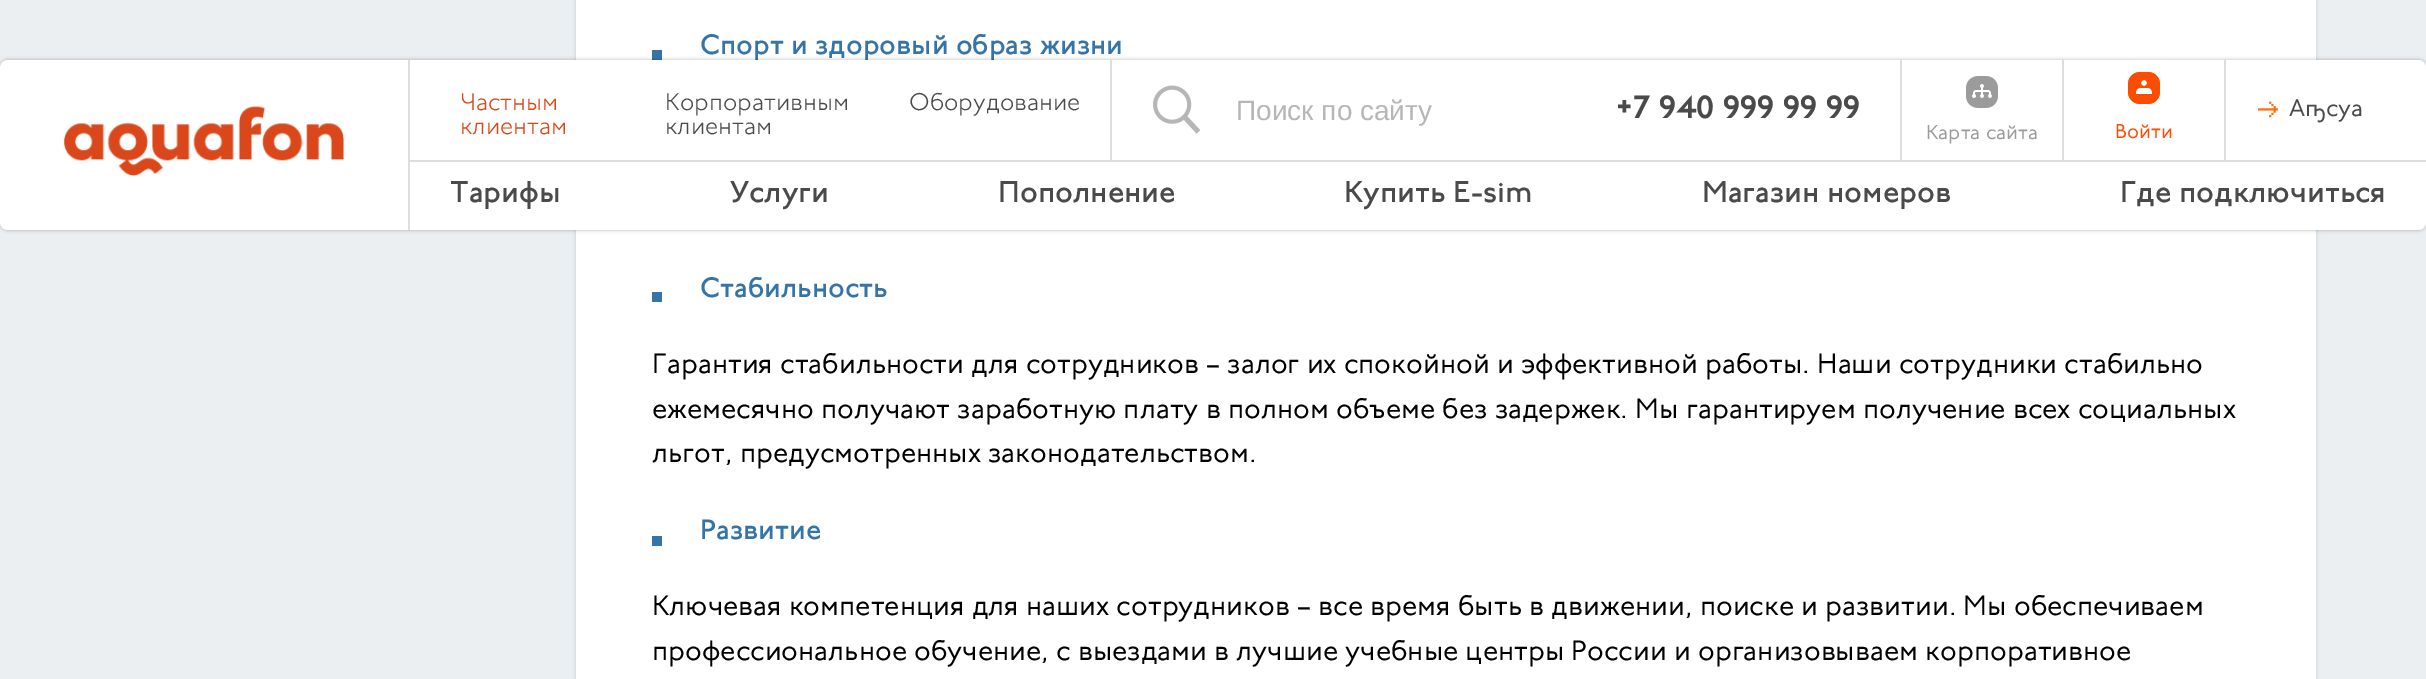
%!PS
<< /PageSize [2426 679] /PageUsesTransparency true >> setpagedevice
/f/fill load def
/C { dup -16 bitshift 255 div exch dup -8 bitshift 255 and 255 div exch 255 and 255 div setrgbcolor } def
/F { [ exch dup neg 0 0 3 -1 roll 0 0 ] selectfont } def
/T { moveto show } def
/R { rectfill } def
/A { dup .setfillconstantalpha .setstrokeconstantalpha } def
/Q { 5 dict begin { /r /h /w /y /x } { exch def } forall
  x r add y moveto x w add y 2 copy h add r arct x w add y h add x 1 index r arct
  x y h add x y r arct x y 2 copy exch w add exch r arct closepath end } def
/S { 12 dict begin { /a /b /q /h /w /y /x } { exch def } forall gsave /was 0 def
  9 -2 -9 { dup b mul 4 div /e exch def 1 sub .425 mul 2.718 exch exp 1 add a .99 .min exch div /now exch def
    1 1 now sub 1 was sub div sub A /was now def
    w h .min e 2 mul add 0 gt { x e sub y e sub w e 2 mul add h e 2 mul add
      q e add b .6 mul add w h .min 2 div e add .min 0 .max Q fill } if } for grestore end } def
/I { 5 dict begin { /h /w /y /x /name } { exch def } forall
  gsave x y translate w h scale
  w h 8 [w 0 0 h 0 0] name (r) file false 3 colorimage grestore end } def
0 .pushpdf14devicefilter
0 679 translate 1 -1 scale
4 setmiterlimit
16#EBEFF1 C
0 0 2426 679 R
16#788EA4 C
576 -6 1740 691 0 2 .38 S
16#FFFFFF C
576 0 1740 679 R
16#3574A9 C
652 50 10 10 R
/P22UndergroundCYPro-Medium 28 F
(Спорт и здоровый образ жизни) 700 54 T
652 292 10 10 R
(Стабильность) 700 297 T
/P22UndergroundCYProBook-Regular 28 F
16#000000 C
(Гарантия стабильности для сотрудников – залог их спокойной и эффективной работы. Наши сотрудники стабильно) 652 373 T
(ежемесячно получают заработную плату в полном объеме без задержек. Мы гарантируем получение всех социальных) 652 418 T
(льгот, предусмотренных законодательством.) 652 462 T
/P22UndergroundCYPro-Medium 28 F
16#3574A9 C
(Развитие) 700 539 T
652 536 10 10 R
/P22UndergroundCYProBook-Regular 28 F
16#000000 C
(Ключевая компетенция для наших сотрудников – все время быть в движении, поиске и развитии. Мы обеспечиваем) 652 615 T
(профессиональное обучение, с выездами в лучшие учебные центры России и организовываем корпоративное) 652 660 T
0 60 2426 170 8 2 .3 S
16#FFFFFF C
0 60 2426 170 8 Q f
16#DEDEDE C
408 60 2 170 R
(1.rgb) 64 105 280 72 I
1110 60 2 100 R
/P22UndergroundCYPro-Light 24 F
16#D9471A C
(Частным) 460 110 T
(клиентам) 460 134 T
16#4A4A4A C
(Корпоративным) 665 110 T
(клиентам) 665 134 T
(Оборудование) 909 110 T
(2.rgb) 1153 85 48 49 I
/LiberationSans-Regular 28 F
16#B6B6B6 C
(Поиск по сайту) 1236 120 T
/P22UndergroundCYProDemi-Regular 32 F
16#4A4A4A C
(+7 940 999 99 99) 1616 118 T
16#DEDEDE C
2224 60 2 100 R
(3.rgb) 2258 101 20 17 I
/P22UndergroundCYProBook-Regular 24 F
16#4A4A4A C
(Аҧсуа) 2289 116 T
16#DEDEDE C
1900 60 2 100 R
(4.rgb) 1966 76 32 32 I
/P22UndergroundCYProBook-Regular 20 F
16#9B9B9B C
(Карта сайта) 1926 139 T
16#DEDEDE C
2062 60 2 100 R
(5.rgb) 2128 72 32 32 I
16#FC4C02 C
(Войти) 2115 138 T
16#DEDEDE C
410 160 2016 2 R
/P22UndergroundCYPro-Medium 30 F
16#4A4A4A C
(Тарифы) 450 202 T
(Услуги) 730 202 T
(Пополнение) 998 202 T
(Купить E-sim) 1344 202 T
(Магазин номеров) 1702 202 T
(Где подключиться) 2120 202 T
.poppdf14devicefilter showpage
